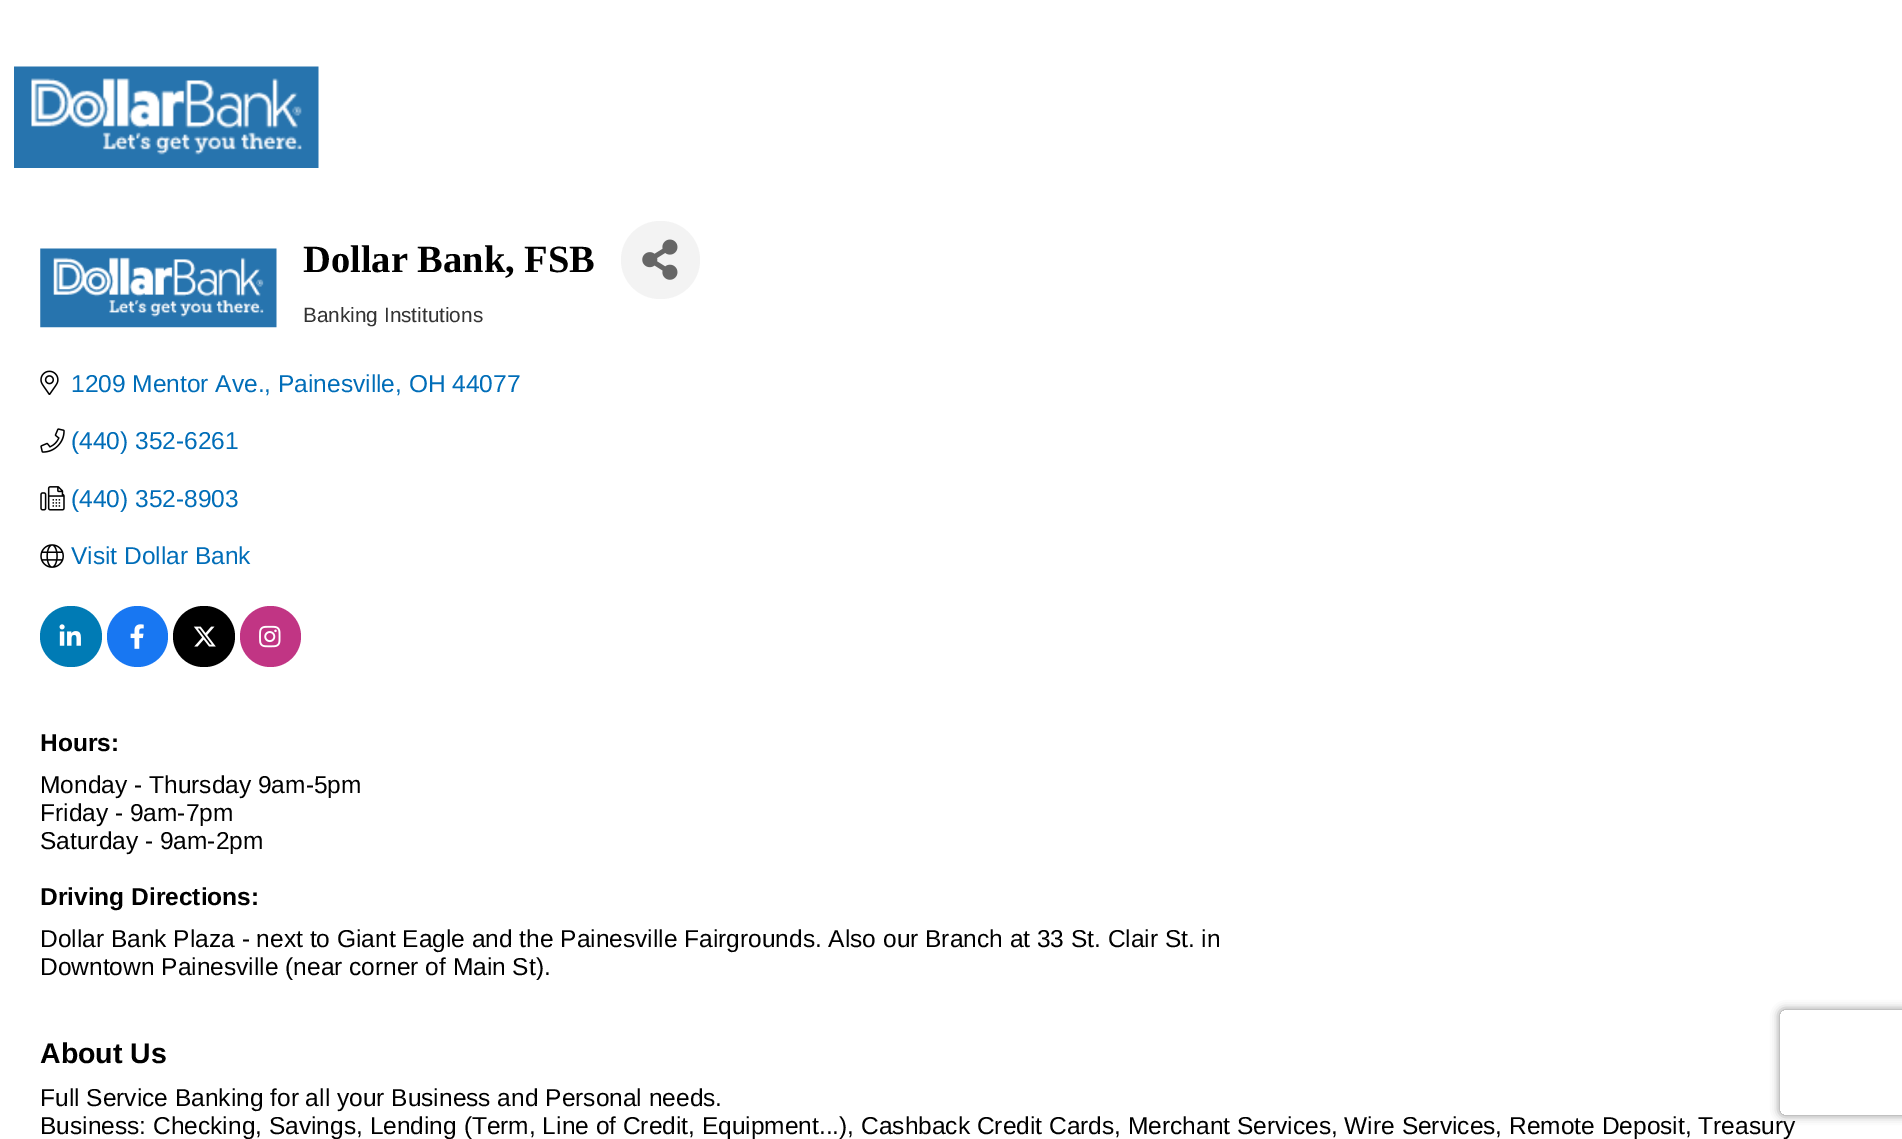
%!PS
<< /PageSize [1902 1139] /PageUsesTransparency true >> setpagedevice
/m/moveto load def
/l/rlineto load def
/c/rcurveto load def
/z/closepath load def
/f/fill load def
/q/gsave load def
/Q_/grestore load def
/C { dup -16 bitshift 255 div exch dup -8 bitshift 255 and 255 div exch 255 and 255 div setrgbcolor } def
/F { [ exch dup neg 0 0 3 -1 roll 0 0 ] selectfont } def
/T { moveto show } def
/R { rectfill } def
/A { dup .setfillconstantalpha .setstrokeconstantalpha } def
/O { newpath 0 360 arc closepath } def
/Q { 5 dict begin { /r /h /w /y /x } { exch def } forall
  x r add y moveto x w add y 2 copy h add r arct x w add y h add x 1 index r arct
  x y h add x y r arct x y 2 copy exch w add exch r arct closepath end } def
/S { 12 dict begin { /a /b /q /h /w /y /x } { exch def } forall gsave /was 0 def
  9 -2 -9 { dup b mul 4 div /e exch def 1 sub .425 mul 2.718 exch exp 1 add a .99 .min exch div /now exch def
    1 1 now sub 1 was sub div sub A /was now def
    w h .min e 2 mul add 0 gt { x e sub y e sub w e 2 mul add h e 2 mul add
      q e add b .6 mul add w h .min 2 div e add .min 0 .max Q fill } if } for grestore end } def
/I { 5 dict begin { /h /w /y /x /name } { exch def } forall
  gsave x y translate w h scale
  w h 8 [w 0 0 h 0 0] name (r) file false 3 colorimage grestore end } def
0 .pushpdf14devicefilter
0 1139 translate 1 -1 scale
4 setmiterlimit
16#FFFFFF C
0 0 1902 1139 R
(1.rgb) 14 66 305 102 I
(2.rgb) 40 248 237 80 I
/LiberationSerif-Bold 38.5 F
16#000000 C
(Dollar Bank, FSB) 303 272 T
16#F3F3F3 C
621 221 79 78 39 Q f
(3.rgb) 642 239 36 41 I
/LiberationSans-Regular 20.75 F
16#333333 C
(Banking Institutions) 303 322 T
(4.rgb) 40 370 19 25 I
/LiberationSans-Regular 24.5 F
16#006DB8 C
(1209 Mentor Ave., Painesville, OH 44077) 71 392 T
(5.rgb) 40 428 25 25 I
(\(440\) 352-6261) 71 449 T
(6.rgb) 40 486 25 25 I
(\(440\) 352-8903) 71 507 T
(7.rgb) 40 544 24 24 I
(Visit Dollar Bank) 71 564 T
16#007BB5 C
40 606 62 61 30.5 Q f
(8.rgb) 59 624 22 22 I
16#1877F2 C
137.5 636.5 30.5 O f
(9.rgb) 130 624 14 25 I
16#000000 C
173 606 62 61 30.5 Q f
(10.rgb) 193 626 23 21 I
16#C13584 C
270.5 636.5 30.5 O f
(11.rgb) 259 625 22 23 I
/LiberationSans-Bold 24.5 F
16#000000 C
(Hours:) 40 751 T
/LiberationSans-Regular 24.5 F
(Monday - Thursday 9am-5pm) 40 793 T
(Friday - 9am-7pm) 40 821 T
(Saturday - 9am-2pm) 40 849 T
/LiberationSans-Bold 24.5 F
(Driving Directions:) 40 905 T
/LiberationSans-Regular 24.5 F
(Dollar Bank Plaza - next to Giant Eagle and the Painesville Fairgrounds. Also our Branch at 33 St. Clair St. in) 40 947 T
(Downtown Painesville \(near corner of Main St\).) 40 975 T
/LiberationSans-Bold 28.5 F
(About Us) 40 1063 T
/LiberationSans-Regular 24.5 F
(Full Service Banking for all your Business and Personal needs.) 40 1106 T
(Business: Checking, Savings, Lending \(Term, Line of Credit, Equipment...\), Cashback Credit Cards, Merchant Services, Wire Services, Remote Deposit, Treasury) 40 1134 T
q
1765 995 m 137 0 l 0 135 l -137 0 l z 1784 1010 m 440 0 l 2 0 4 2 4 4 c 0 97 l 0 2 -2 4 -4 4 c -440 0 l -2 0 -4 -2 -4 -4 c 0 -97 l 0 -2 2 -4 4 -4 c z eoclip newpath
16#808080 C
1780 1010 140 105 4 4.5 1 S
Q_
.poppdf14devicefilter showpage
